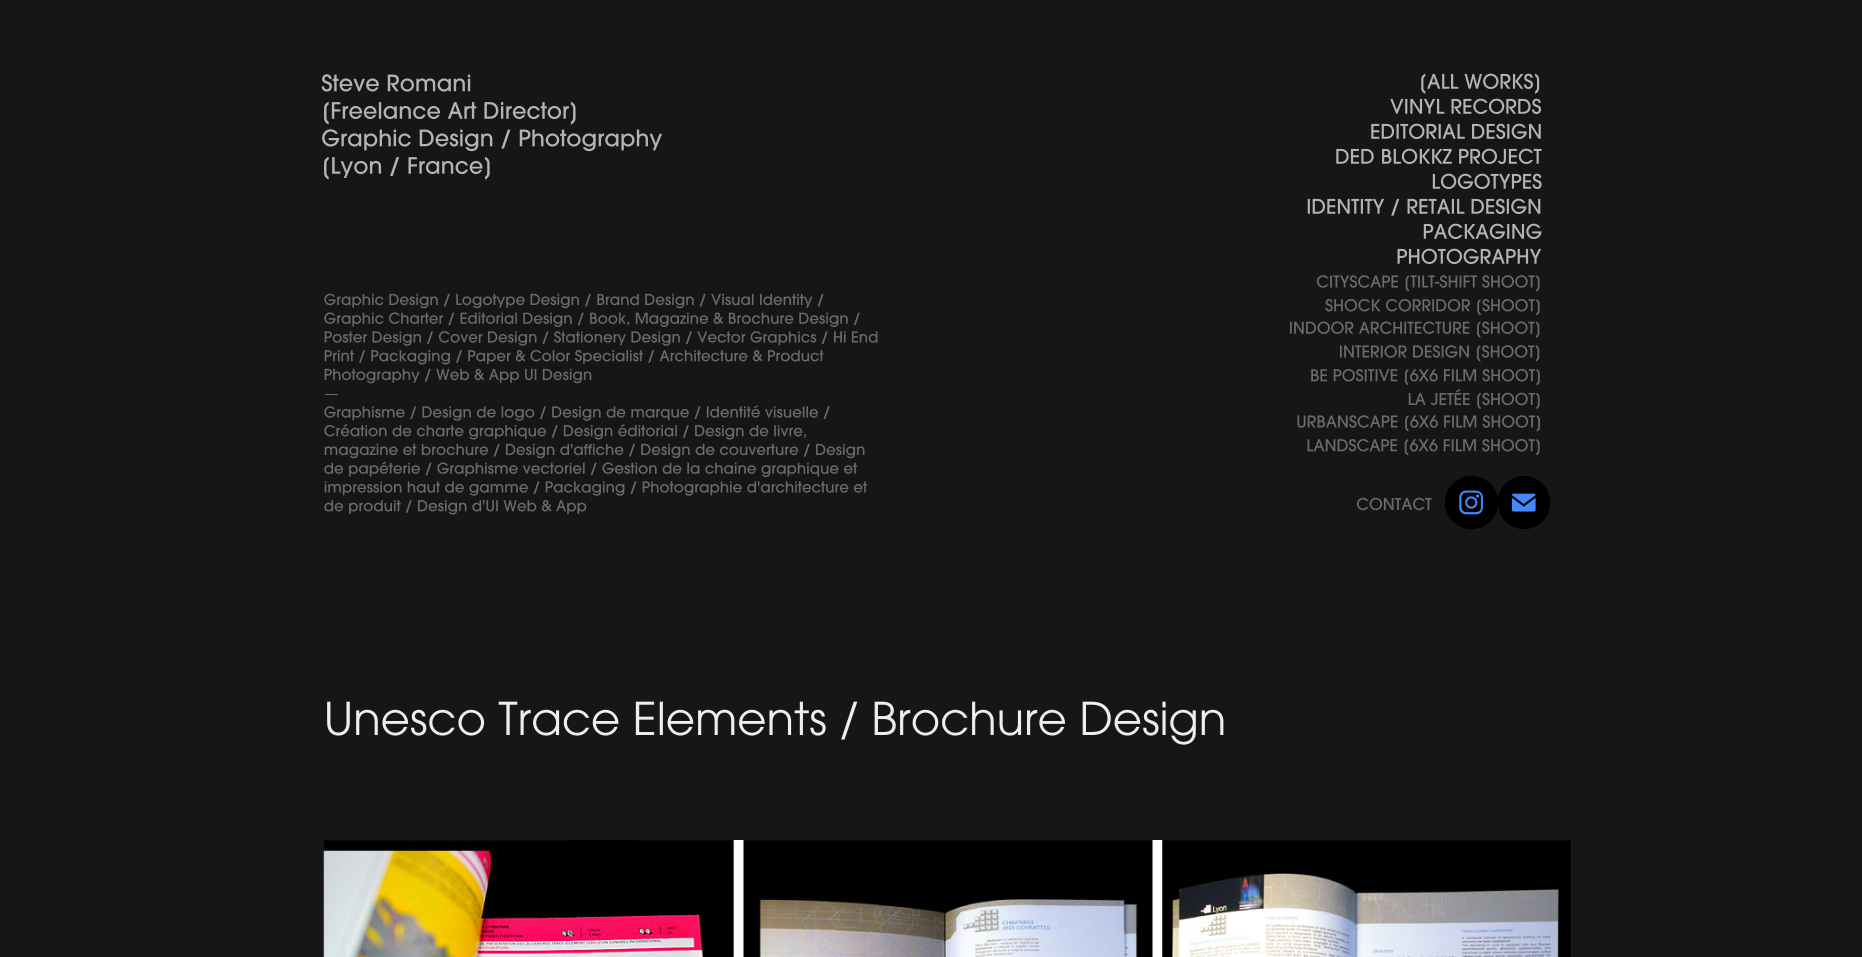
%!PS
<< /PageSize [1862 957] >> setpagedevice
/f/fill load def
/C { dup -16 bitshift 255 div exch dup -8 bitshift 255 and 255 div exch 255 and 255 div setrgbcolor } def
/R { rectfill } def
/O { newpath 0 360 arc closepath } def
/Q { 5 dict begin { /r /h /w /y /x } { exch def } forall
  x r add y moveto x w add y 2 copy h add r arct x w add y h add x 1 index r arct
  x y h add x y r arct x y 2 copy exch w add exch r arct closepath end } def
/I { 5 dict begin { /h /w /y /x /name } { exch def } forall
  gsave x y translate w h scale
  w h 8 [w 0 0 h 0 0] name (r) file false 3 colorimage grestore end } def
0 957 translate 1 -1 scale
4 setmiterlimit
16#161616 C
0 0 1862 957 R
(1.rgb) 321 74 150 18 I
(2.rgb) 324 101 252 24 I
(3.rgb) 322 129 340 23 I
(4.rgb) 324 156 166 24 I
(5.rgb) 324 293 500 16 I
(6.rgb) 324 312 536 15 I
(7.rgb) 324 331 554 15 I
(8.rgb) 324 350 500 15 I
(9.rgb) 324 368 268 16 I
16#6B6B6B C
325 394 13 1 R
(10.rgb) 324 405 506 16 I
(11.rgb) 324 424 482 16 I
(12.rgb) 324 443 541 16 I
(13.rgb) 324 461 534 16 I
(14.rgb) 324 481 544 15 I
(15.rgb) 324 500 263 15 I
(16.rgb) 1421 73 119 21 I
(17.rgb) 1390 98 151 16 I
(18.rgb) 1371 123 170 16 I
(19.rgb) 1336 148 206 16 I
(20.rgb) 1432 173 110 16 I
(21.rgb) 1307 198 234 18 I
(22.rgb) 1423 223 119 16 I
(23.rgb) 1397 248 144 16 I
(24.rgb) 1316 275 224 17 I
(25.rgb) 1325 299 215 17 I
(26.rgb) 1290 321 250 17 I
(27.rgb) 1340 345 200 17 I
(28.rgb) 1311 369 229 17 I
(29.rgb) 1408 389 132 20 I
(30.rgb) 1297 415 243 17 I
(31.rgb) 1307 439 233 17 I
(32.rgb) 1356 497 76 14 I
16#000000 C
1471.5 502.5 26.5 O f
(33.rgb) 1459 490 24 25 I
1498 476 52 53 26 Q f
(34.rgb) 1511 493 25 19 I
(35.rgb) 327 701 897 44 I
(36.rgb) 323 840 1248 117 I
showpage
